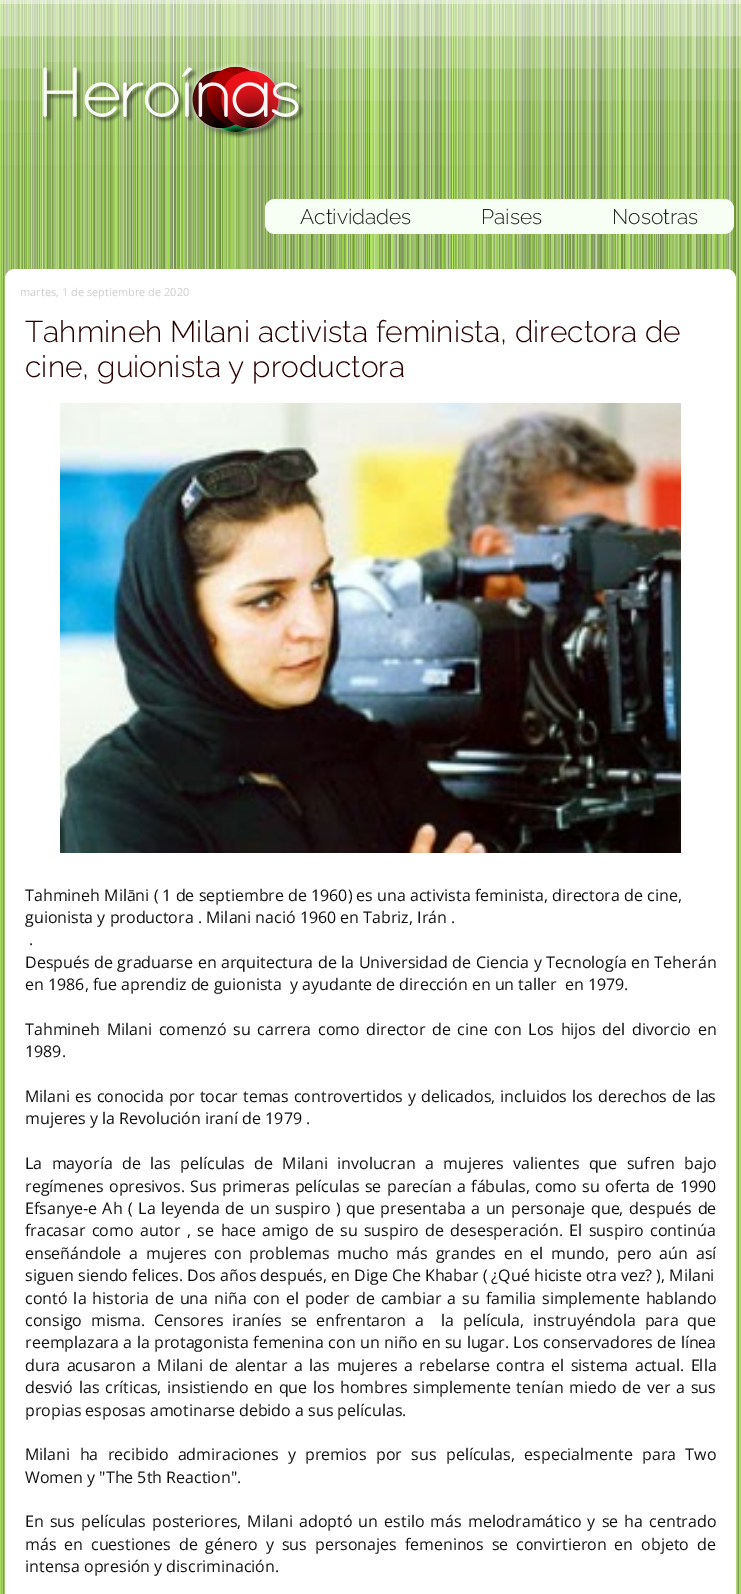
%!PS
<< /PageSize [741 1594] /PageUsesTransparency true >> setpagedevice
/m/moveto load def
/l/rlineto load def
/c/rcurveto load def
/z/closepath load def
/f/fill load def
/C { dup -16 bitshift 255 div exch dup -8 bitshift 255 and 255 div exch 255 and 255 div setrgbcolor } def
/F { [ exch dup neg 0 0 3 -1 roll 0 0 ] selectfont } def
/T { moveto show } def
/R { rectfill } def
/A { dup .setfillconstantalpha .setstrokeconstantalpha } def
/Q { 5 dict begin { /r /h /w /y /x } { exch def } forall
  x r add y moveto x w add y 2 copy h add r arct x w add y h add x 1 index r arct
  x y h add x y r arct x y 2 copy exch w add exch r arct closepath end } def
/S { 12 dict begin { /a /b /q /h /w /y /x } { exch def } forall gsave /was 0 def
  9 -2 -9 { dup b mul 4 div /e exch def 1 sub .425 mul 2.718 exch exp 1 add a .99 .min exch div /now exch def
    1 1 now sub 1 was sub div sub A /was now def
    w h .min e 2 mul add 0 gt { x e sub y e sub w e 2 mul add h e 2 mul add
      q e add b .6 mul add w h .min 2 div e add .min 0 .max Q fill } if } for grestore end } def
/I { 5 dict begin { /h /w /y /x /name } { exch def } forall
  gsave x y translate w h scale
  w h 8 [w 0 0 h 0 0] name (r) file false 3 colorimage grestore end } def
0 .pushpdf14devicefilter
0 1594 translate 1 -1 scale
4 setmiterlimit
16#FFFFFF C
0 0 741 1594 R
(1.rgb) 0 0 741 1594 I
-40 -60 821 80 0 64.5 1 S
(2.rgb) 43 62 262 76 I
16#F7FFF4 C
275 199 m 171 0 l 0 35 l -171 0 l -5.5 0 -10 -4.5 -10 -10 c 0 -15 l 0 -5.5 4.5 -10 10 -10 c z f
/Raleway-Thin 21 F
16#222222 C
(Actividades) 300 224 T
16#F7FFF4 C
446 199 131 35 R
16#222222 C
(Paises) 481 224 T
16#F7FFF4 C
577 199 m 147 0 l 5.5 0 10 4.5 10 10 c 0 15 l 0 5.5 -4.5 10 -10 10 c -147 0 l z f
16#222222 C
(Nosotras) 612 224 T
16#FFFFFF C
5 269 731 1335 10 Q f
/OpenSans-Regular 11 F
16#CCCCCC C
(martes, 1 de septiembre de 2020) 20 296 T
/Raleway-Thin 30 F
16#290000 C
(Tahmineh Milani activista feminista, directora de) 25 342 T
(cine, guionista y productora) 25 377 T
(3.rgb) 60 403 621 450 I
/OpenSans-Regular 16 F
16#111111 C
(Tahmineh Milāni \( 1 de septiembre de 1960\) es una activista feminista, directora de cine,) 25 901 T
(guionista y productora . Milani nació 1960 en Tabriz, Irán .) 25 923 T
(.) 29 945 T
25 968 m .4 0 32 (Después de graduarse en arquitectura de la Universidad de Ciencia y Tecnología en Teherán) widthshow
(en 1986, fue aprendiz de guionista  y ayudante de dirección en un taller  en 1979.) 25 990 T
25 1035 m 2.5 0 32 (Tahmineh Milani comenzó su carrera como director de cine con Los hijos del divorcio en) widthshow
(1989.) 25 1057 T
25 1102 m .75 0 32 (Milani es conocida por tocar temas controvertidos y delicados, incluidos los derechos de las) widthshow
(mujeres y la Revolución iraní de 1979 .) 25 1124 T
25 1169 m 5.25 0 32 (La mayoría de las películas de Milani involucran a mujeres valientes que sufren bajo) widthshow
25 1192 m 1.25 0 32 (regímenes opresivos. Sus primeras películas se parecían a fábulas, como su oferta de 1990) widthshow
25 1214 m 1.5 0 32 (Efsanye-e Ah \( La leyenda de un suspiro \) que presentaba a un personaje que, después de) widthshow
25 1236 m 2.25 0 32 (fracasar como autor , se hace amigo de su suspiro de desesperación. El suspiro continúa) widthshow
25 1259 m 3.6 0 32 (enseñándole a mujeres con problemas mucho más grandes en el mundo, pero aún así) widthshow
(siguen siendo felices. Dos años después, en Dige Che Khabar \( ¿Qué hiciste otra vez? \), Milani) 25 1281 T
25 1304 m 1.9 0 32 (contó la historia de una niña con el poder de cambiar a su familia simplemente hablando) widthshow
25 1326 m 4.6 0 32 (consigo misma. Censores iraníes se enfrentaron a  la película, instruyéndola para que) widthshow
25 1348 m .25 0 32 (reemplazara a la protagonista femenina con un niño en su lugar. Los conservadores de línea) widthshow
25 1371 m 2.4 0 32 (dura acusaron a Milani de alentar a las mujeres a rebelarse contra el sistema actual. Ella) widthshow
25 1393 m 1.6 0 32 (desvió las críticas, insistiendo en que los hombres simplemente tenían miedo de ver a sus) widthshow
(propias esposas amotinarse debido a sus películas.) 25 1416 T
25 1460 m 5.25 0 32 (Milani ha recibido admiraciones y premios por sus películas, especialmente para Two) widthshow
(Women y "The 5th Reaction".) 25 1483 T
25 1527 m 2 0 32 (En sus películas posteriores, Milani adoptó un estilo más melodramático y se ha centrado) widthshow
25 1550 m 3.75 0 32 (más en cuestiones de género y sus personajes femeninos se convirtieron en objeto de) widthshow
(intensa opresión y discriminación.) 25 1572 T
.poppdf14devicefilter showpage
